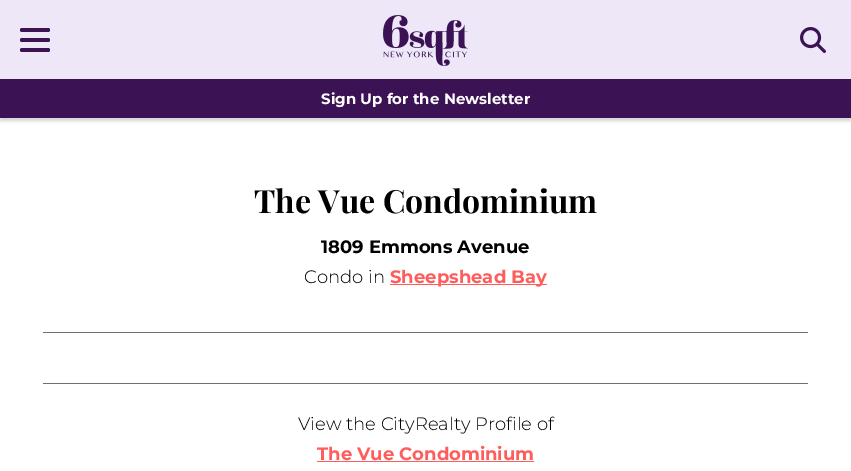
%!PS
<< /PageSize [851 471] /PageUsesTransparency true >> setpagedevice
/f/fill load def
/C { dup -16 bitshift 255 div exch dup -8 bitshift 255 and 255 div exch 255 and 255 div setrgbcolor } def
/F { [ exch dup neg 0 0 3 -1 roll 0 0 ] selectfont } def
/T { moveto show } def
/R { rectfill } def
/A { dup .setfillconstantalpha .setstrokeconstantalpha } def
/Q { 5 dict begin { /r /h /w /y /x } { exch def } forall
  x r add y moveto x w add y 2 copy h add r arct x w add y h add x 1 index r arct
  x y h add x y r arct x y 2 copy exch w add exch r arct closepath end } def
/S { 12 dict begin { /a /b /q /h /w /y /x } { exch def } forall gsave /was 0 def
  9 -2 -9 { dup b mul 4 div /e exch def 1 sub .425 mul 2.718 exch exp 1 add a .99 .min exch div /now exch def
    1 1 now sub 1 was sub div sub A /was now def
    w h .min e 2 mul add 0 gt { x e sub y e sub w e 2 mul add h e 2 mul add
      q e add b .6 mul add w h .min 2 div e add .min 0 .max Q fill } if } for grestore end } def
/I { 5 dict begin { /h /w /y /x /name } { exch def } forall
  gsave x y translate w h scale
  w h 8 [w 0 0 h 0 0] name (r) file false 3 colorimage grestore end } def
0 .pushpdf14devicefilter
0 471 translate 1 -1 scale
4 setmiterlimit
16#FFFFFF C
0 0 851 471 R
16#000000 C
0 3 851 118 0 1.5 .16 S
16#EDE7F8 C
0 0 851 79 R
16#3B1355 C
20 28 30 4 2 Q f
20 38 30 4 2 Q f
20 48 30 4 2 Q f
(1.rgb) 383 15 85 51 I
(2.rgb) 800 27 26 26 I
0 79 851 39 R
/Montserrat-Bold 15 F
16#FFFFFF C
(Sign Up for the Newsletter) 321 104 T
/PlayfairDisplay-Bold 32 F
16#000000 C
(The Vue Condominium) 254 213 T
/Montserrat-Bold 18 F
(1809 Emmons Avenue) 321 253 T
/Montserrat-Light 18 F
(Condo in) 304 283 T
16#FF5C5C C
390 284 157 1 R
/Montserrat-Bold 18 F
(Sheepshead Bay) 390 283 T
16#707070 C
43 332 765 1 R
43 383 765 1 R
/Montserrat-Light 18 F
16#000000 C
(View the CityRealty Profile of) 298 430 T
/Montserrat-Bold 18 F
16#FF5C5C C
(The Vue Condominium) 317 460 T
317 461 217 1 R
.poppdf14devicefilter showpage
